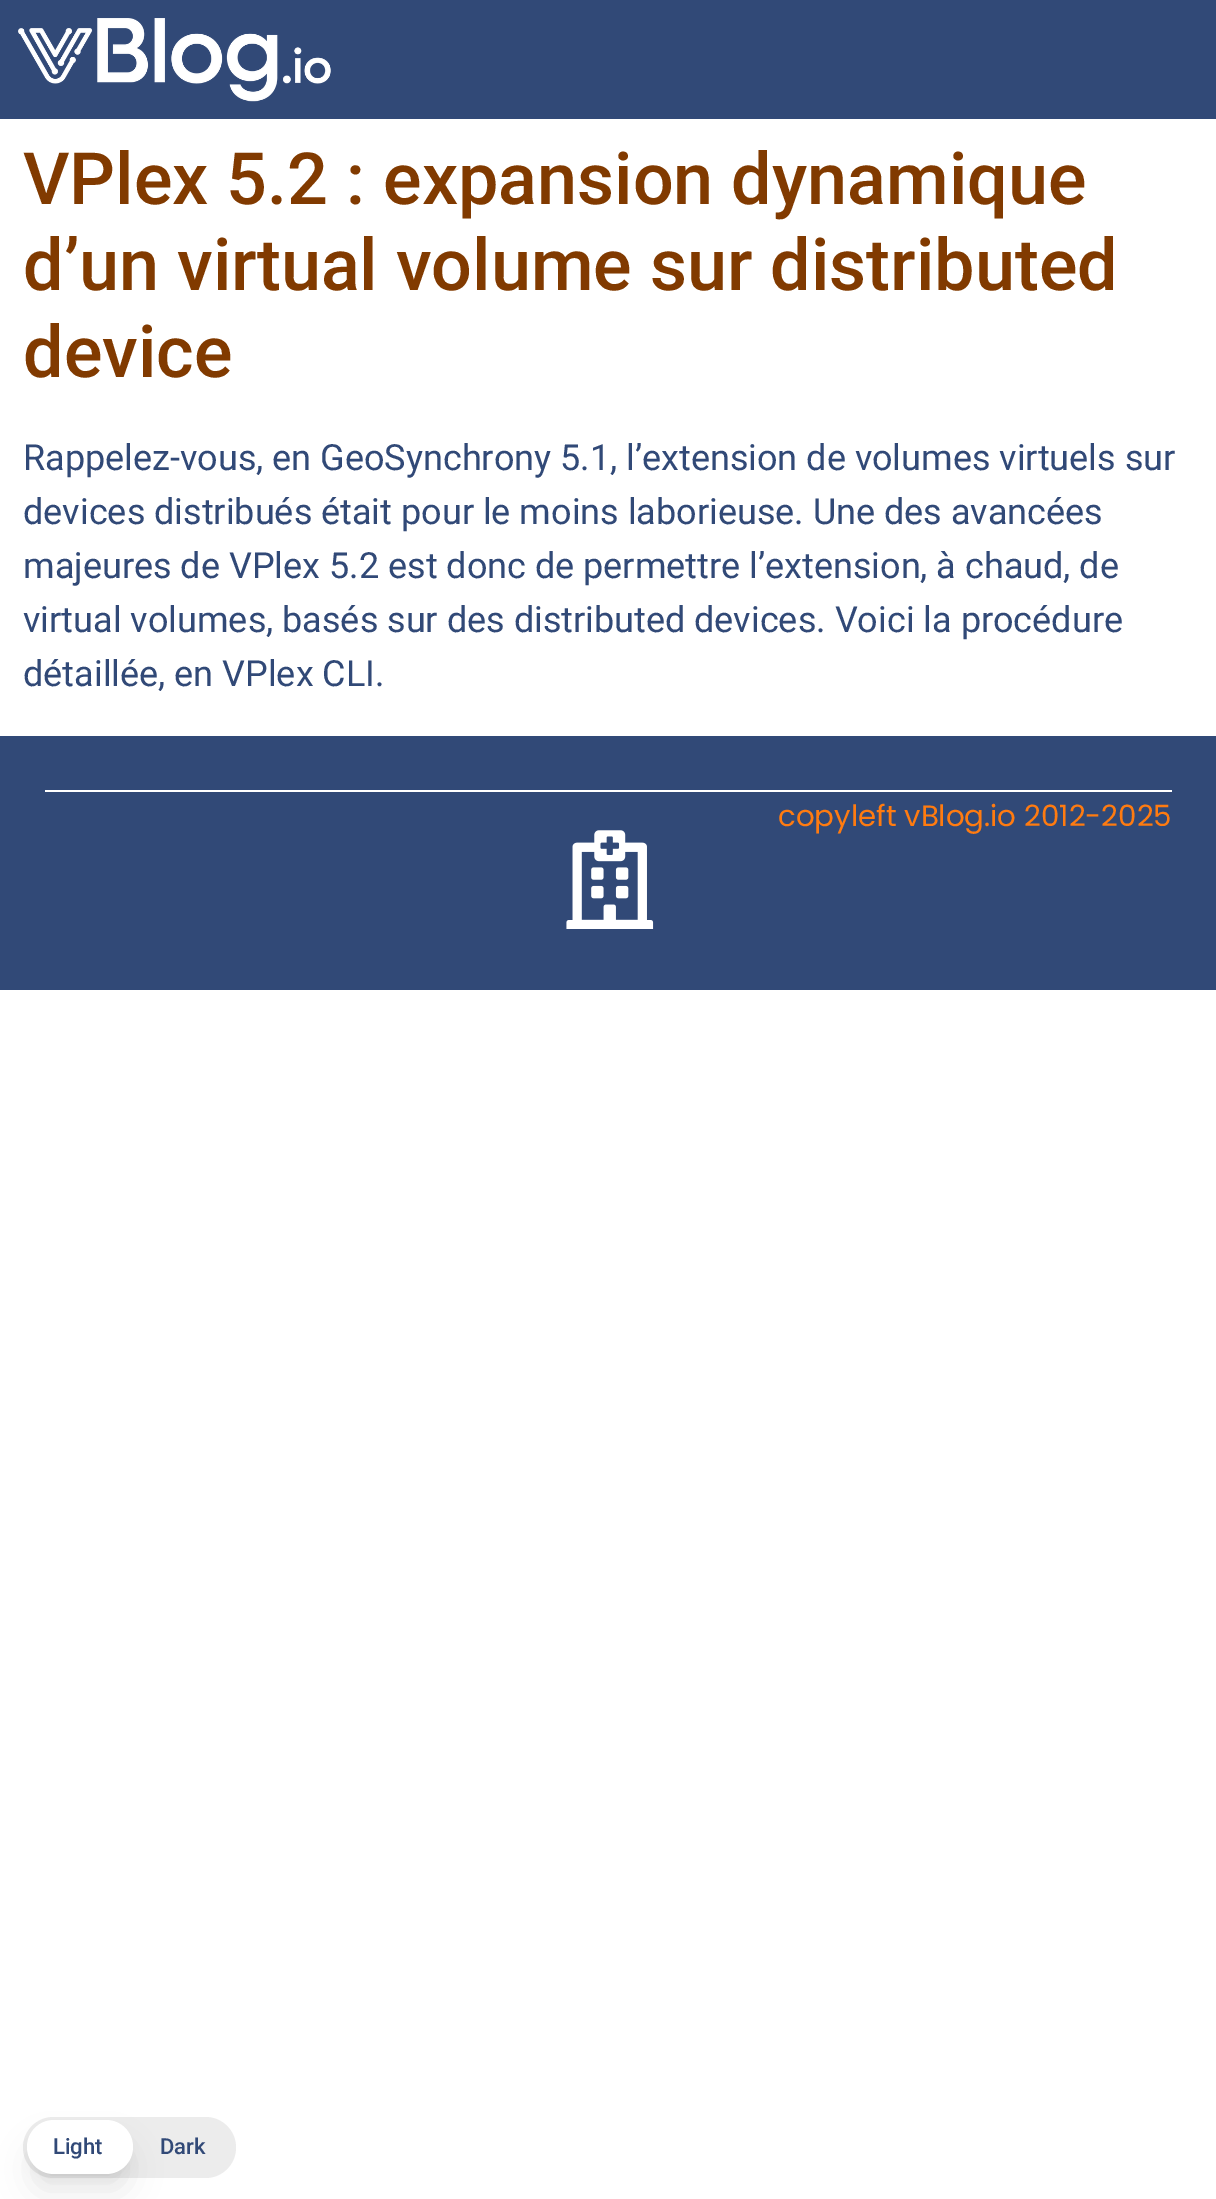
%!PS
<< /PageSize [1216 2199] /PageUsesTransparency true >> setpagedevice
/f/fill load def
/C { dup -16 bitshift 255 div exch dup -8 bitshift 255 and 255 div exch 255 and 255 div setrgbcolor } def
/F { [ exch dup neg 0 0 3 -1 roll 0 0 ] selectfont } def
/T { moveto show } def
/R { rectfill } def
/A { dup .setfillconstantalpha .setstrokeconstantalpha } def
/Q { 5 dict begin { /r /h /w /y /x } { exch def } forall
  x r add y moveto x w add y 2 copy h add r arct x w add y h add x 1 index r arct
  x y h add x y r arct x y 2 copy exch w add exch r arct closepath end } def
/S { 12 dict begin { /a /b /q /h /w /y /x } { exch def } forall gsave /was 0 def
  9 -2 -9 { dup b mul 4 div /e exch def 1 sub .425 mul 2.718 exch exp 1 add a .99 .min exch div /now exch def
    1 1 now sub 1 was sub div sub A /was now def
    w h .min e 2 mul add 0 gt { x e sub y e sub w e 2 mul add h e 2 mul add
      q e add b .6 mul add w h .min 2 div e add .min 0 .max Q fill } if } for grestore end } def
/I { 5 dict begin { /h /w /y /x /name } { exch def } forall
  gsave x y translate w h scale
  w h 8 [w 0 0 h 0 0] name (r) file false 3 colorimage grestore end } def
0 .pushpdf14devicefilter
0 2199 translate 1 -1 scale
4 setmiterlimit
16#FFFFFF C
0 0 1216 2199 R
16#314977 C
0 0 1216 119 R
(1.rgb) 18 18 313 84 I
/Roboto-Medium 72 F
16#813A00 C
(VPlex 5.2 : expansion dynamique) 23 204 T
(d’un virtual volume sur distributed) 23 290 T
(device) 23 377 T
/Roboto-Regular 36 F
16#314977 C
(Rappelez-vous, en GeoSynchrony 5.1, l’extension de volumes virtuels sur) 23 470 T
(devices distribués était pour le moins laborieuse. Une des avancées) 23 524 T
(majeures de VPlex 5.2 est donc de permettre l’extension, à chaud, de) 23 578 T
(virtual volumes, basés sur des distributed devices. Voici la procédure) 23 632 T
(détaillée, en VPlex CLI.) 23 686 T
0 736 1216 254 R
16#FFFFFF C
45 790 1127 2 R
/Poppins-Regular 29.25 F
16#FF7B10 C
(copyleft vBlog.io 2012-2025) 778 826 T
(2.rgb) 566 830 88 99 I
16#ECECEC C
23 2117 213 61 30.5 Q f
16#000000 C
36 2138 88 36 18 7 .1 S
34 2149 92 40 20 17 .1 S
16#FFFFFF C
27 2120 106 54 27 Q f
/Roboto-Medium 22 F
16#314977 C
(Light) 53 2154 T
(Dark) 160 2154 T
.poppdf14devicefilter showpage
